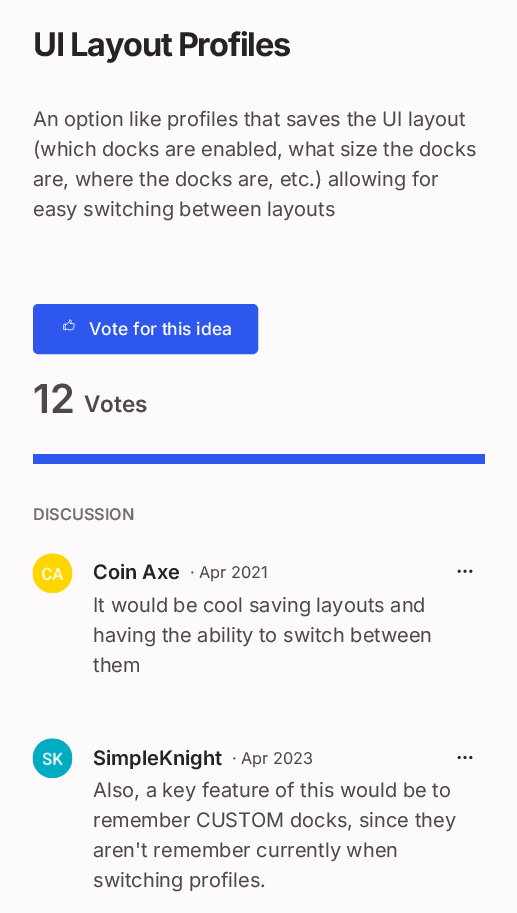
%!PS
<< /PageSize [517 913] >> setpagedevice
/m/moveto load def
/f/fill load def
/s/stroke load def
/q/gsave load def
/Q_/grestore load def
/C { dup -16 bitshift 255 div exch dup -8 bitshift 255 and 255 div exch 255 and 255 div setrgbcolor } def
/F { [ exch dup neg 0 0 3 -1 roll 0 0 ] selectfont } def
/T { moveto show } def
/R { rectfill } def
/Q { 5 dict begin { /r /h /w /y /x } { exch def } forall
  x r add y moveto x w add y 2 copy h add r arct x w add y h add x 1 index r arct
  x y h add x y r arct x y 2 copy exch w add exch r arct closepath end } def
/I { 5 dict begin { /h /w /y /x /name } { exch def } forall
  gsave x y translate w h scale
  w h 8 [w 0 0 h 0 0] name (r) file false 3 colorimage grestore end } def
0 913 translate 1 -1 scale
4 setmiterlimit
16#FCFAFA C
0 0 517 913 R
/Inter-Bold 32.5 F
16#262225 C
33 56 m -1.25 0 (UI Layout Profiles) ashow
/Inter-Regular 20 F
16#4E474B C
(An option like profiles that saves the UI layout) 33 126 T
(\(which docks are enabled, what size the docks) 33 156 T
(are, where the docks are, etc.\) allowing for) 33 186 T
(easy switching between layouts) 33 216 T
16#2D57ED C
33.5 304.5 224 49 4.5 Q q f Q_
s
(1.rgb) 62 319 13 12 I
/Inter-Medium 17.5 F
16#FFFFFF C
(Vote for this idea) 89 335 T
/Inter-SemiBold 40 F
16#4E474B C
(12) 33 413 T
/Inter-SemiBold 22.5 F
(Votes) 84 412 T
16#2D57ED C
33 454 452 10 R
/Inter-SemiBold 16.25 F
16#756E71 C
(DISCUSSION) 33 520 T
(2.rgb) 32 553 41 41 I
/Inter-SemiBold 20 F
16#262225 C
(Coin Axe) 93 579 T
/Inter-Regular 16.25 F
16#4E474B C
(· Apr 2021) 190 578 T
(3.rgb) 457 569 16 4 I
/Inter-Regular 20 F
(It would be cool saving layouts and) 93 612 T
(having the ability to switch between) 93 642 T
(them) 93 672 T
(4.rgb) 32 738 41 41 I
/Inter-SemiBold 20 F
16#262225 C
(SimpleKnight) 93 765 T
/Inter-Regular 16.25 F
16#4E474B C
(· Apr 2023) 232 764 T
(5.rgb) 457 755 16 5 I
/Inter-Regular 20 F
(Also, a key feature of this would be to) 93 797 T
(remember CUSTOM docks, since they) 93 827 T
(aren't remember currently when) 93 857 T
(switching profiles.) 93 887 T
showpage
